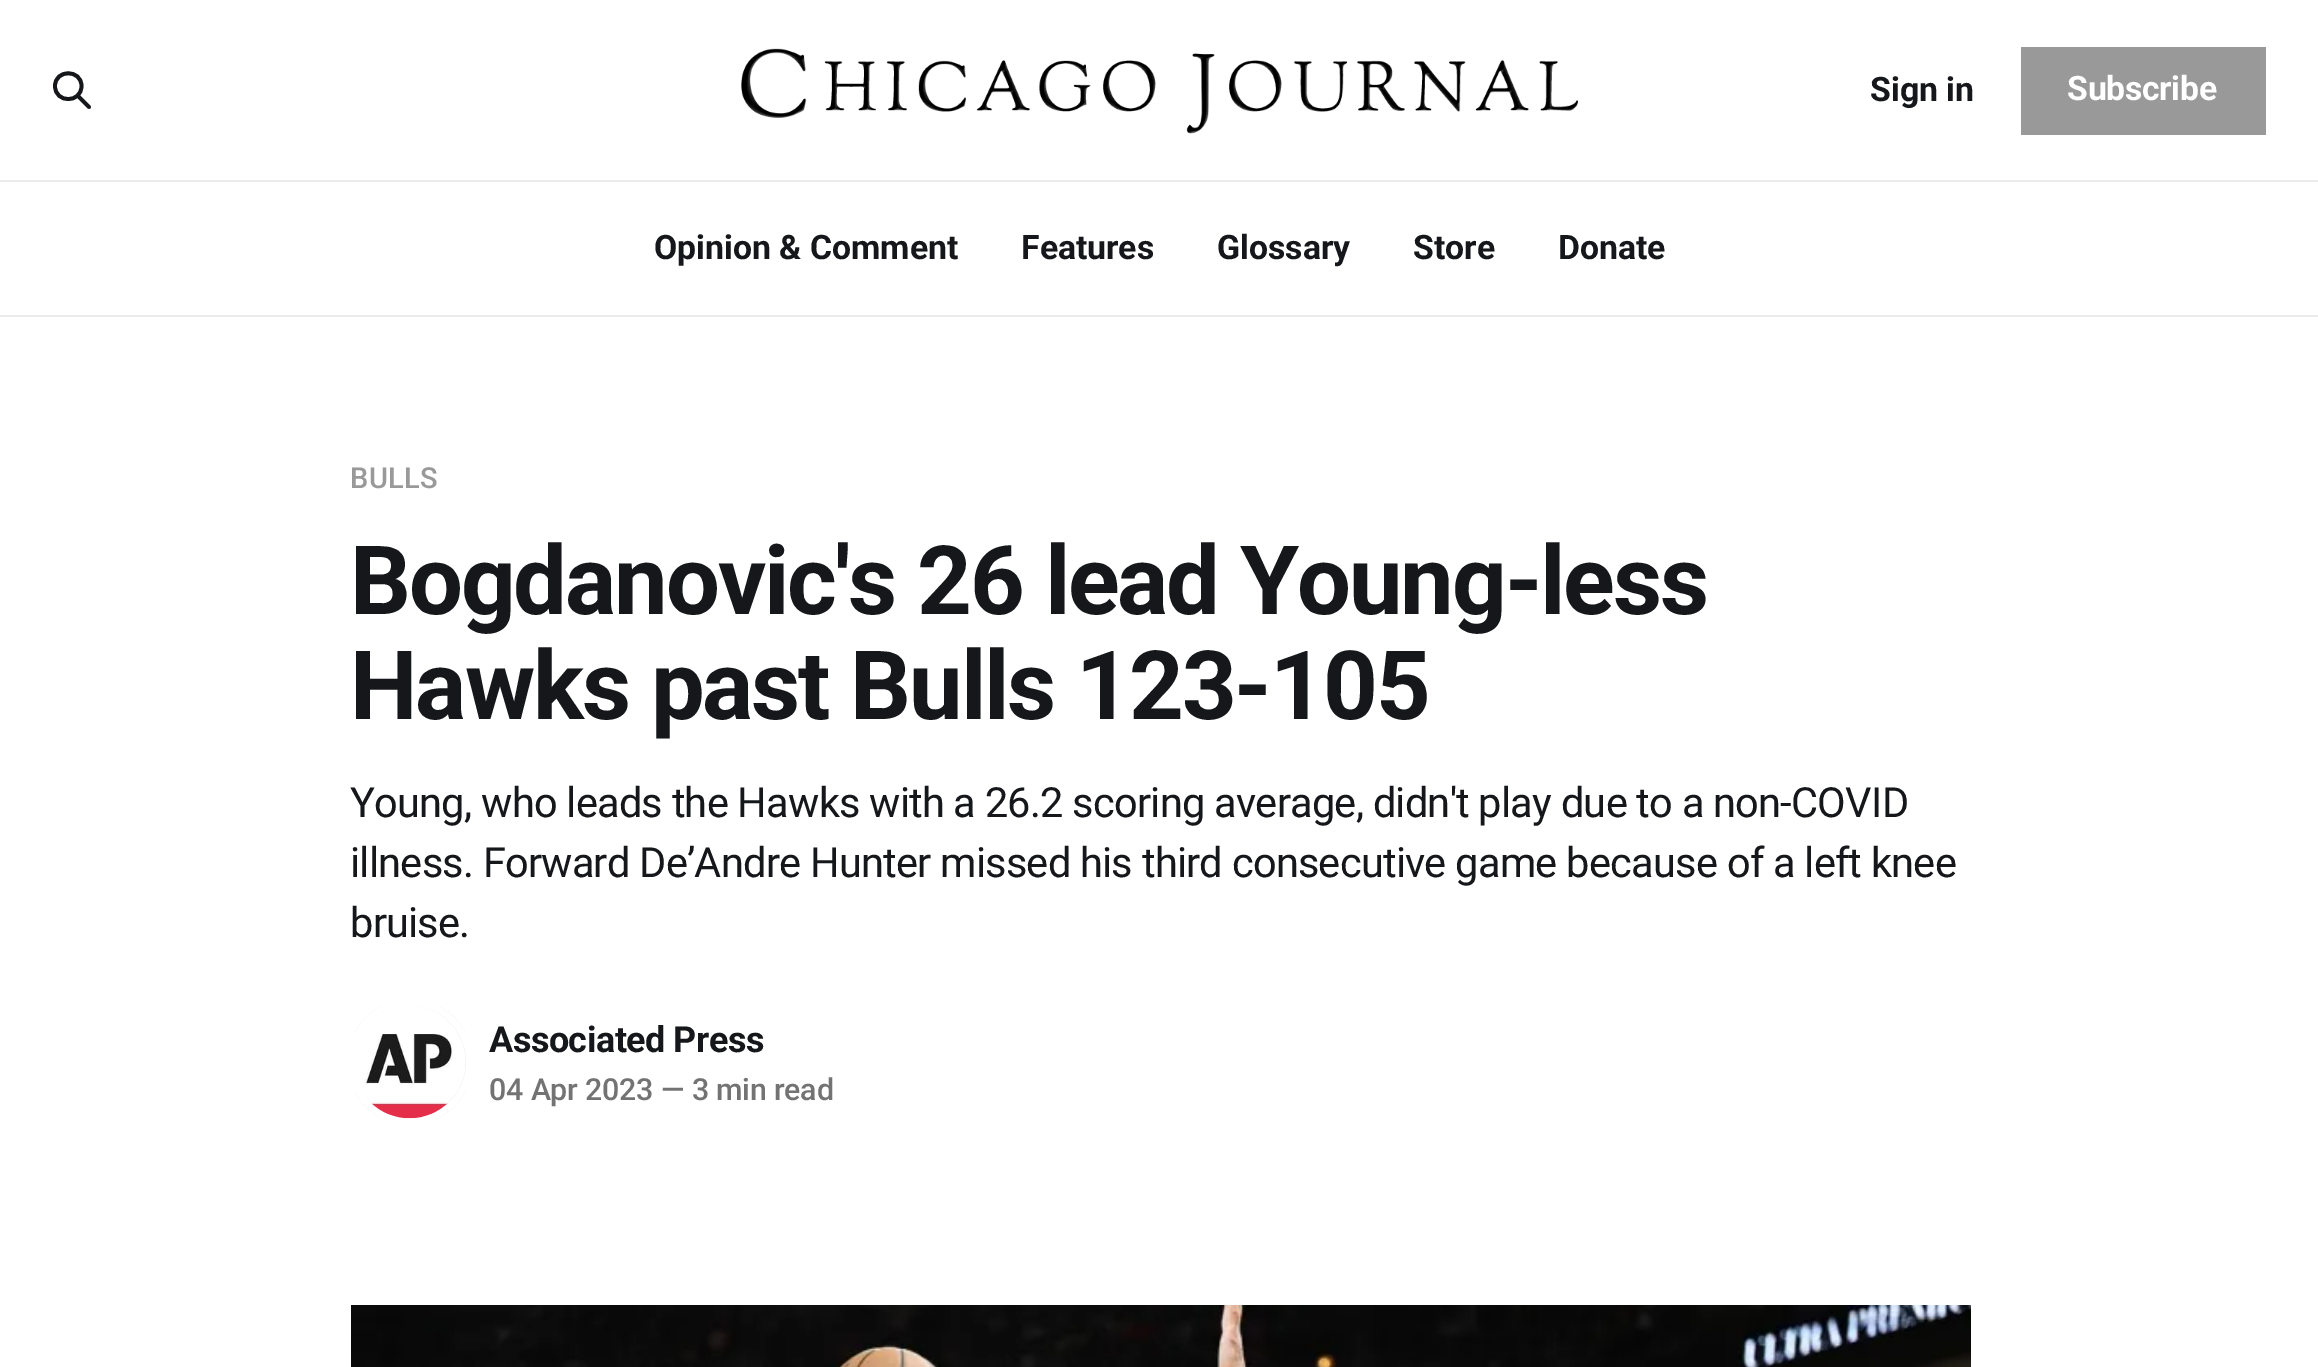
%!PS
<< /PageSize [2318 1367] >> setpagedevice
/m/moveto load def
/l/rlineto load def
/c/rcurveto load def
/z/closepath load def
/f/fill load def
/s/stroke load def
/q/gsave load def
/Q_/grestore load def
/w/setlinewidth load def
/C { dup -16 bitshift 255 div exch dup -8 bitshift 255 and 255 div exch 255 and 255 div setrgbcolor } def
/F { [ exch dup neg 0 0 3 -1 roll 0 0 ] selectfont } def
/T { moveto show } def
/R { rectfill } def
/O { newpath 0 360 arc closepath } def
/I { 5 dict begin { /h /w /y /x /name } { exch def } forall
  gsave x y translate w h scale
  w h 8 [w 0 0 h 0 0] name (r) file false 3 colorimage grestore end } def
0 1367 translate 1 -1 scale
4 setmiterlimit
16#FFFFFF C
0 0 2318 1367 R
(1.rgb) 741 48 837 86 I
16#15171A C
3.8 w
1 setlinecap
1 setlinejoin
89 107 m -11.5 -11.5 l 81.5 86 m 0 17.5 -26.5 17.5 -26.5 0 c 0 -17 26.5 -17 26.5 0 c z s
/Roboto-Bold 33.75 F
(Sign in) 1870 101 T
16#999999 C
2021 47 245 88 R
16#FFFFFF C
2067 100 m -.25 0 (Subscribe) ashow
16#EBEBEB C
0 180 2318 2 R
16#15171A C
(Opinion & Comment) 654 259 T
(Features) 1021 259 T
(Glossary) 1217 259 T
(Store) 1413 259 T
(Donate) 1558 259 T
16#EBEBEB C
0 315 2318 2 R
/Roboto-Medium 29 F
16#999999 C
350 488 m .25 0 (BULLS) ashow
/Roboto-Bold 95.7 F
16#15171A C
350 614 m -2.1 0 (Bogdanovic's 26 lead Young-less) ashow
350 719 m -2.1 0 (Hawks past Bulls 123-105) ashow
/Roboto-Regular 41.55 F
350 817 m -.75 0 (Young, who leads the Hawks with a 26.2 scoring average, didn't play due to a non-COVID) ashow
350 877 m -.75 0 (illness. Forward De’Andre Hunter missed his third consecutive game because of a left knee) ashow
350 937 m -.75 0 (bruise.) ashow
16#E6E6E6 C
410 1062 59.5 O q f Q_
16#FFFFFF C
7 w
0 setlinecap
0 setlinejoin
s
(2.rgb) 354 1006 112 113 I
/Roboto-Bold 36 F
16#15171A C
489 1052 m -.5 0 (Associated Press) ashow
/Roboto-Medium 30.4 F
16#737373 C
489 1100 m -.2 0 (04 Apr 2023 — 3 min read) ashow
(3.rgb) 351 1305 1620 62 I
showpage
